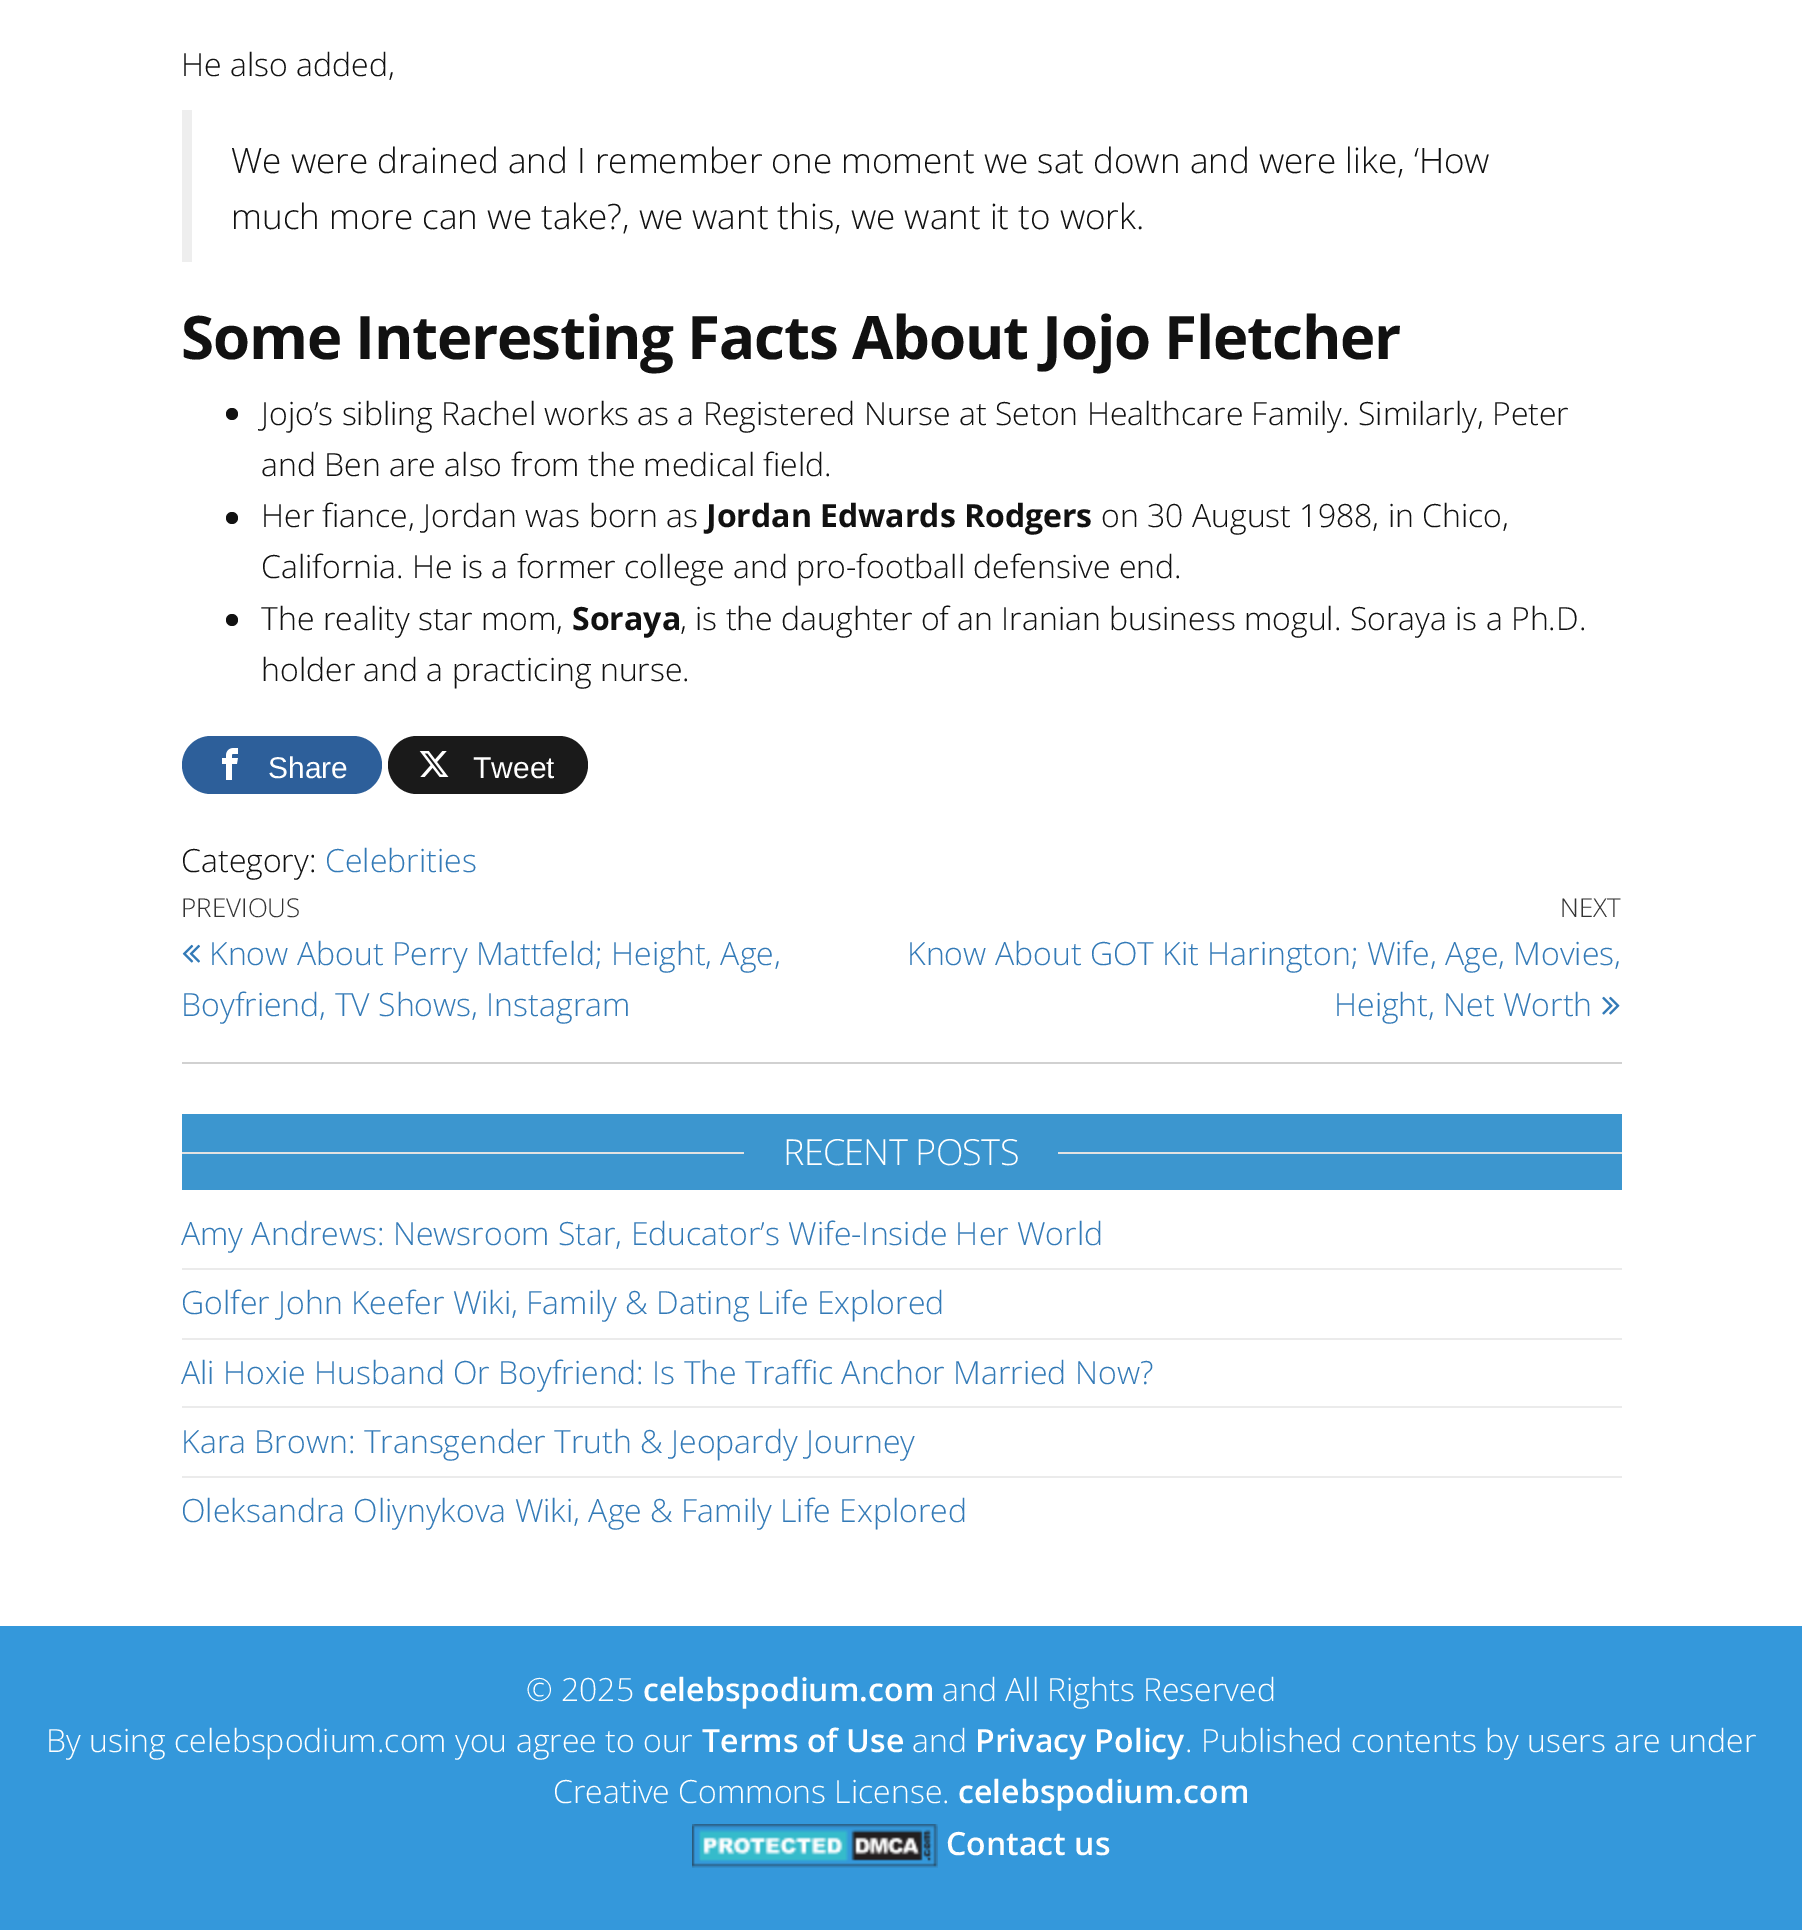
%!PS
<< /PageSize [1802 1930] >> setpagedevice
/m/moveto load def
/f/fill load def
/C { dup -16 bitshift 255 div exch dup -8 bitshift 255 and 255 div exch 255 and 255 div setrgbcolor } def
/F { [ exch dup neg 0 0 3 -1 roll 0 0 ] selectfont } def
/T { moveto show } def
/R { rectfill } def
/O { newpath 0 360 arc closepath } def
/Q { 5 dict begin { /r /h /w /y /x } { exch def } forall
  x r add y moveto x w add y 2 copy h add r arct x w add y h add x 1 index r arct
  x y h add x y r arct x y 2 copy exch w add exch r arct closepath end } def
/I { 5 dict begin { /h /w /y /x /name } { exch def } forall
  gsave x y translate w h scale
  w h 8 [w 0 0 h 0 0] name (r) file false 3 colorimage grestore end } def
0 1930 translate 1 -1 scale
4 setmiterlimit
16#FFFFFF C
0 0 1802 1930 R
/OpenSans-Light 32 F
16#111111 C
(He also added,) 181 76 T
16#EEEEEE C
182 110 10 152 R
/OpenSans-Light 35 F
16#111111 C
(We were drained and I remember one moment we sat down and were like, ‘How) 231 173 T
(much more can we take?, we want this, we want it to work.) 231 229 T
/OpenSans-Bold 60 F
181 359 m -1.2 0 (Some Interesting Facts About Jojo Fletcher) ashow
232 414 6 O f
/OpenSans-Light 32 F
(Jojo’s sibling Rachel works as a Registered Nurse at Seton Healthcare Family. Similarly, Peter) 261 425 T
(and Ben are also from the medical field.) 261 476 T
232 518 6 O f
(Her fiance, Jordan was born as) 261 527 T
/OpenSans-Bold 32 F
(Jordan Edwards Rodgers) 706 527 T
/OpenSans-Light 32 F
(on 30 August 1988, in Chico,) 1101 527 T
(California. He is a former college and pro-football defensive end.) 261 578 T
232 620 6 O f
(The reality star mom,) 261 630 T
/OpenSans-Bold 32 F
(Soraya) 572 630 T
/OpenSans-Light 32 F
(, is the daughter of an Iranian business mogul. Soraya is a Ph.D.) 680 630 T
(holder and a practicing nurse.) 261 681 T
16#2D5F9A C
182 736 200 58 29 Q f
(1.rgb) 222 748 16 32 I
/LiberationSans-Regular 30 F
16#FFFFFF C
(Share) 268 778 T
16#1A1A1A C
388 736 200 58 29 Q f
(2.rgb) 419 751 30 26 I
16#FFFFFF C
(Tweet) 473 778 T
/OpenSans-Light 32 F
16#111111 C
(Category:) 181 872 T
16#337AB7 C
(Celebrities) 325 872 T
16#D1D1D1 C
182 1062 1440 2 R
/OpenSans-Light 26 F
16#333333 C
(PREVIOUS) 181 917 T
(3.rgb) 182 944 18 19 I
/OpenSans-Light 32 F
16#337AB7 C
(Know About Perry Mattfeld; Height, Age,) 209 965 T
(Boyfriend, TV Shows, Instagram) 181 1016 T
/OpenSans-Light 26 F
16#333333 C
(NEXT) 1560 917 T
/OpenSans-Light 32 F
16#337AB7 C
(Know About GOT Kit Harington; Wife, Age, Movies,) 907 965 T
(Height, Net Worth) 1334 1016 T
(4.rgb) 1602 996 18 19 I
16#3C96CF C
182 1114 1440 76 R
16#E2E2E2 C
182 1152 1440 2 R
16#3C96CF C
744 1152 314 2 R
/OpenSans-Light 36 F
16#FFFFFF C
783 1165 m -.75 0 (RECENT POSTS) ashow
16#EBEBEB C
182 1268 1440 2 R
/OpenSans-Light 32 F
16#337AB7 C
(Amy Andrews: Newsroom Star, Educator’s Wife-Inside Her World) 181 1245 T
16#EBEBEB C
182 1338 1440 2 R
16#337AB7 C
(Golfer John Keefer Wiki, Family & Dating Life Explored) 181 1314 T
16#EBEBEB C
182 1406 1440 2 R
16#337AB7 C
(Ali Hoxie Husband Or Boyfriend: Is The Traffic Anchor Married Now?) 181 1384 T
16#EBEBEB C
182 1476 1440 2 R
16#337AB7 C
(Kara Brown: Transgender Truth & Jeopardy Journey) 181 1453 T
(Oleksandra Oliynykova Wiki, Age & Family Life Explored) 181 1522 T
16#3498DB C
0 1626 1802 304 R
16#FFFFFF C
(© 2025) 526 1701 T
/OpenSans-SemiBold 32 F
(celebspodium.com) 643 1701 T
/OpenSans-Light 32 F
(and All Rights Reserved) 942 1701 T
(By using celebspodium.com you agree to our) 46 1752 T
/OpenSans-SemiBold 32 F
(Terms of Use) 702 1752 T
/OpenSans-Light 32 F
(and) 912 1752 T
/OpenSans-SemiBold 32 F
(Privacy Policy) 975 1752 T
/OpenSans-Light 32 F
(. Published contents by users are under) 1185 1752 T
(Creative Commons License.) 553 1803 T
/OpenSans-SemiBold 32 F
(celebspodium.com) 958 1803 T
(5.rgb) 692 1824 246 44 I
(Contact us) 946 1855 T
showpage
